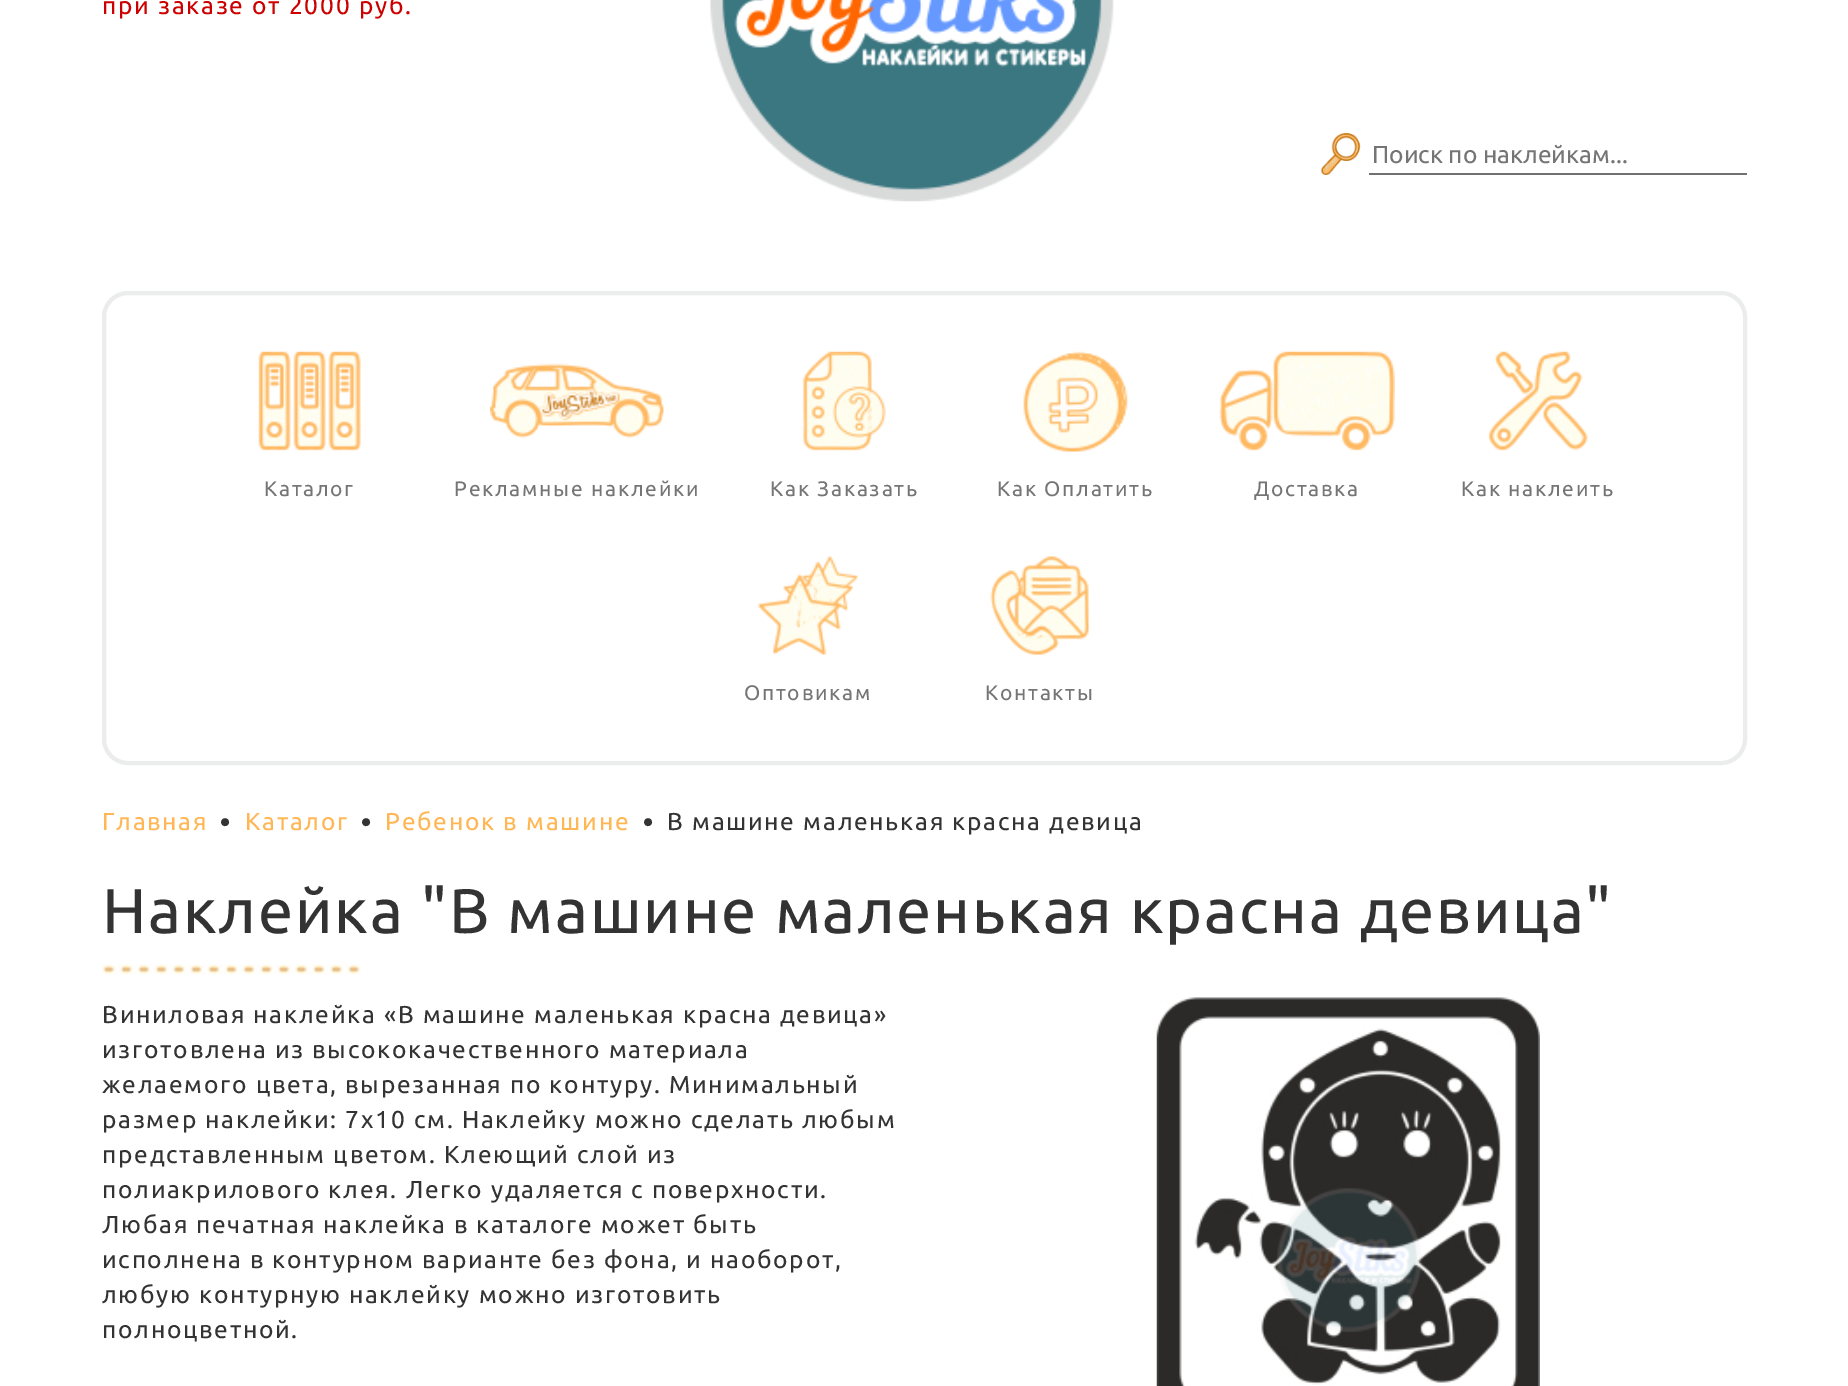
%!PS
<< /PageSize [1848 1386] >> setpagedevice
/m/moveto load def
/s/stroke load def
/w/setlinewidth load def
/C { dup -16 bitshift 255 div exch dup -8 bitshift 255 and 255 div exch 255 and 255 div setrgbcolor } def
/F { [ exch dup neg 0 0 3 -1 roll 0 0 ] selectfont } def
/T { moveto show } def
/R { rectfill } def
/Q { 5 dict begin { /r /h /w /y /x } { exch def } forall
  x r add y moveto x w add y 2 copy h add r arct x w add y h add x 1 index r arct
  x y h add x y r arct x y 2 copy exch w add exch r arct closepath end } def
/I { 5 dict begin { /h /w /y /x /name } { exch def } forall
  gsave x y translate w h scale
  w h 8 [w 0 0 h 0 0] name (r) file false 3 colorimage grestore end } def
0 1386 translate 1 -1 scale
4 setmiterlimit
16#FFFFFF C
0 0 1848 1386 R
/Ubuntu-Regular 24.5 F
16#CC0000 C
102 14 m 1.75 0 (при заказе от 2000 руб.) ashow
(1.rgb) 710 0 404 202 I
(2.rgb) 1321 133 40 42 I
16#707070 C
1369 173 378 2 R
16#757575 C
(Поиск по наклейкам...) 1372 163 T
16#EBECEC C
4 w
104 293 1641 470 24 Q s
(3.rgb) 258 351 103 100 I
/Ubuntu-Regular 21 F
16#757575 C
264 496 m 1.75 0 (Каталог) ashow
(4.rgb) 490 363 175 75 I
454 496 m 1.75 0 (Рекламные наклейки) ashow
(5.rgb) 802 351 84 100 I
770 496 m 1.75 0 (Как Заказать) ashow
(6.rgb) 1023 351 105 101 I
997 496 m 1.75 0 (Как Оплатить) ashow
(7.rgb) 1219 351 176 100 I
1254 496 m 1.75 0 (Доставка) ashow
(8.rgb) 1488 351 100 100 I
1461 496 m 1.75 0 (Как наклеить) ashow
(9.rgb) 757 556 101 99 I
744 700 m 1.75 0 (Оптовикам) ashow
(10.rgb) 990 556 100 99 I
985 700 m 1.75 0 (Контакты) ashow
/Ubuntu-Regular 24.5 F
16#FFB755 C
102 830 m 1.75 0 (Главная) ashow
/Ubuntu-Bold 28 F
16#333333 C
220 832 m 1.75 0 (•) ashow
/Ubuntu-Regular 24.5 F
16#FFB755 C
245 830 m 1.75 0 (Каталог) ashow
/Ubuntu-Bold 28 F
16#333333 C
361 832 m 1.75 0 (•) ashow
/Ubuntu-Regular 24.5 F
16#FFB755 C
385 830 m 1.75 0 (Ребенок в машине) ashow
/Ubuntu-Bold 28 F
16#333333 C
643 832 m 1.75 0 (•) ashow
/Ubuntu-Regular 24.5 F
667 830 m 1.75 0 (В машине маленькая красна девица) ashow
/Ubuntu-Regular 63 F
102 933 m 1.75 0 (Наклейка "В машине маленькая красна девица") ashow
(11.rgb) 102 964 259 11 I
/Ubuntu-Regular 24.5 F
102 1023 m 1.75 0 (Виниловая наклейка «В машине маленькая красна девица») ashow
102 1058 m 1.75 0 (изготовлена из высококачественного материала) ashow
102 1093 m 1.75 0 (желаемого цвета, вырезанная по контуру. Минимальный) ashow
102 1128 m 1.75 0 (размер наклейки: 7x10 см. Наклейку можно сделать любым) ashow
102 1163 m 1.75 0 (представленным цветом. Клеющий слой из) ashow
102 1198 m 1.75 0 (полиакрилового клея. Легко удаляется с поверхности.) ashow
102 1233 m 1.75 0 (Любая печатная наклейка в каталоге может быть) ashow
102 1268 m 1.75 0 (исполнена в контурном варианте без фона, и наоборот,) ashow
102 1303 m 1.75 0 (любую контурную наклейку можно изготовить) ashow
102 1338 m 1.75 0 (полноцветной.) ashow
(12.rgb) 1156 997 384 389 I
showpage
